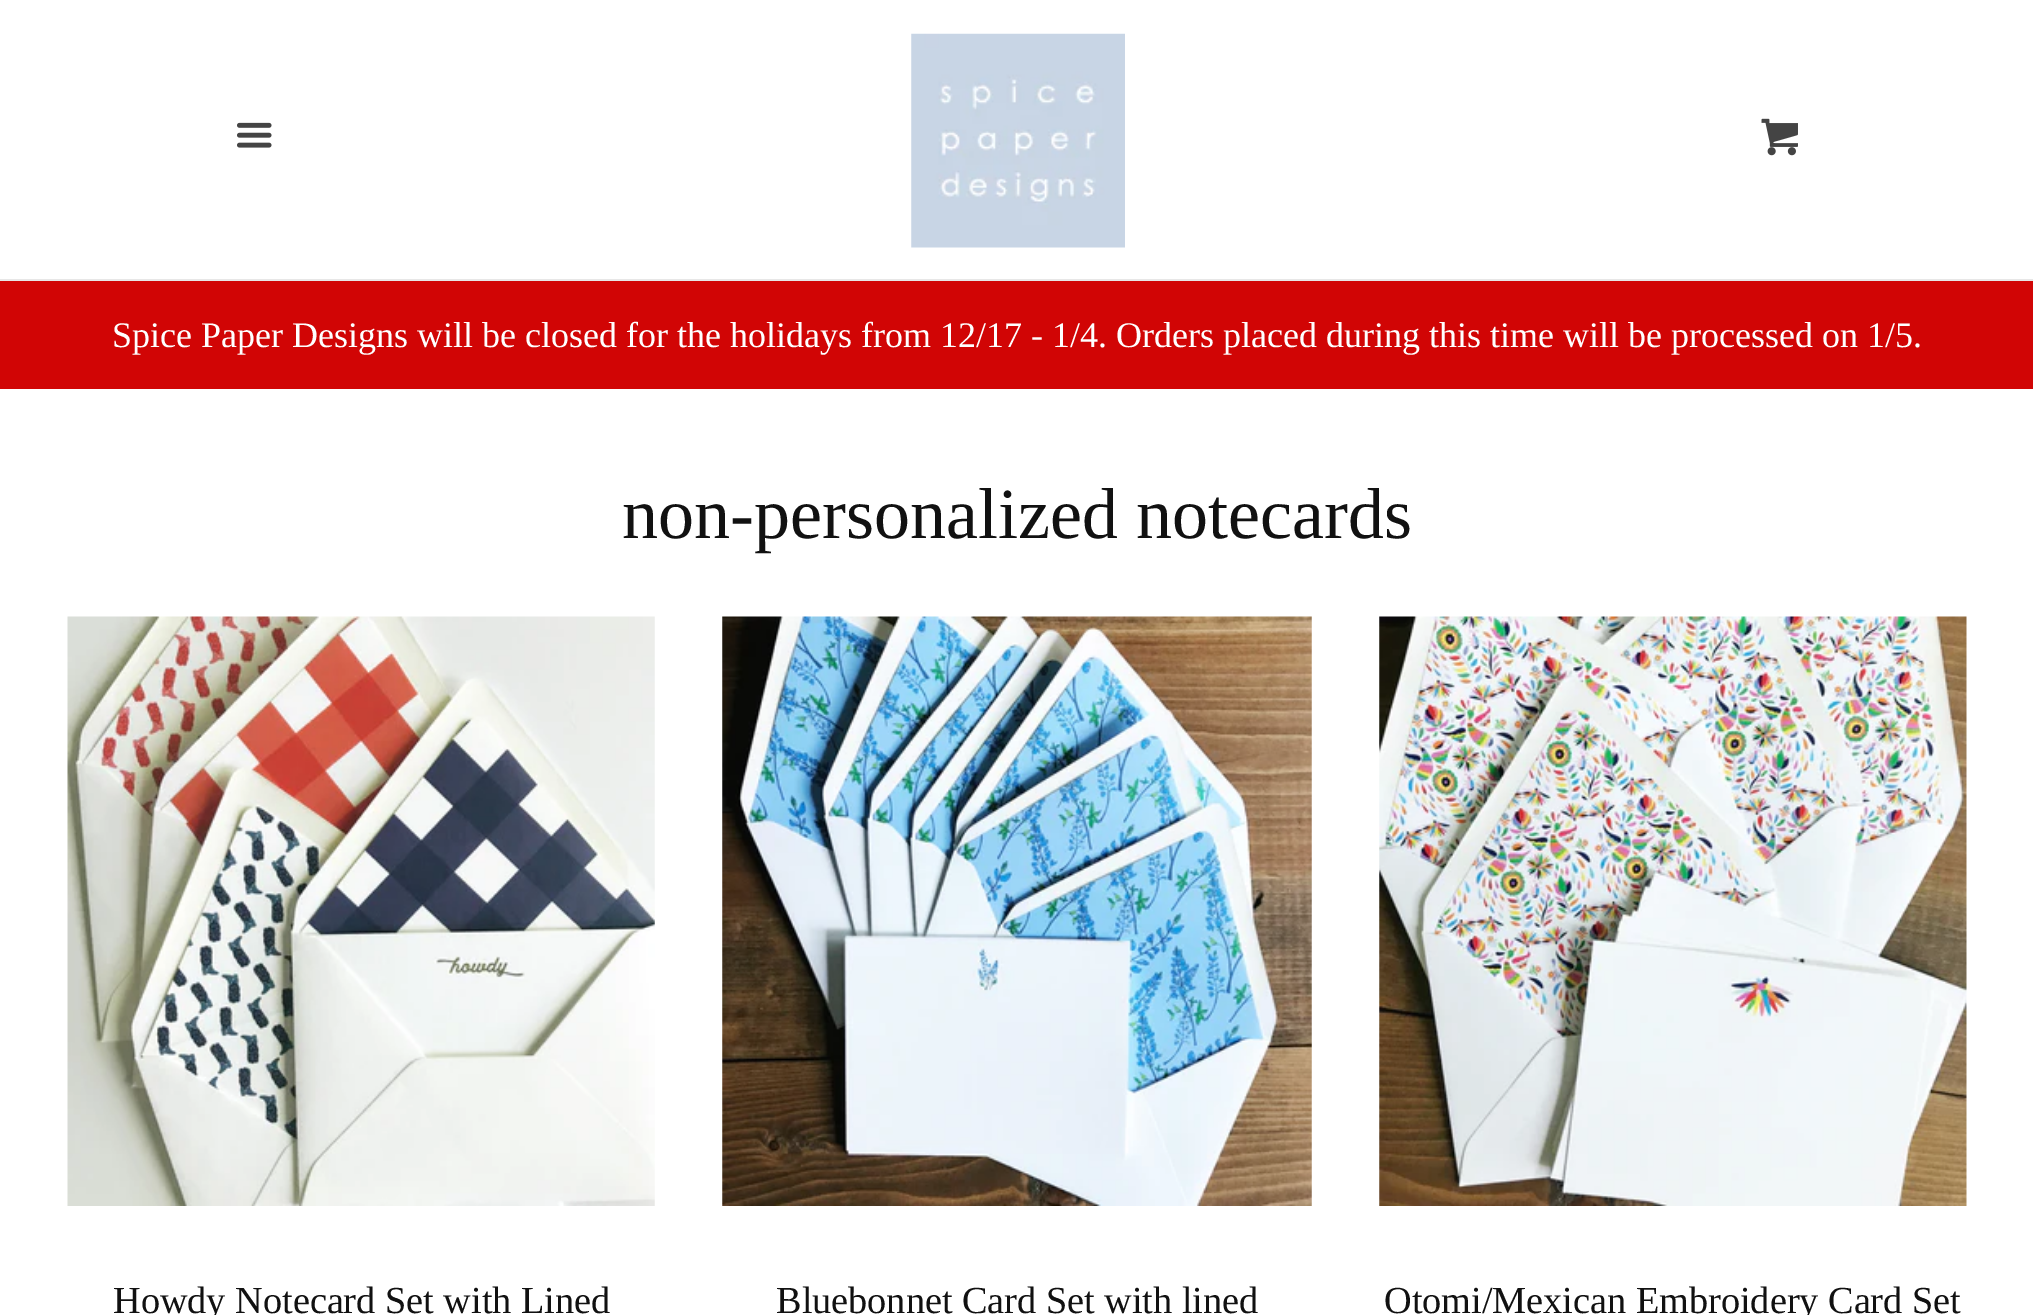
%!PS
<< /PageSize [2033 1315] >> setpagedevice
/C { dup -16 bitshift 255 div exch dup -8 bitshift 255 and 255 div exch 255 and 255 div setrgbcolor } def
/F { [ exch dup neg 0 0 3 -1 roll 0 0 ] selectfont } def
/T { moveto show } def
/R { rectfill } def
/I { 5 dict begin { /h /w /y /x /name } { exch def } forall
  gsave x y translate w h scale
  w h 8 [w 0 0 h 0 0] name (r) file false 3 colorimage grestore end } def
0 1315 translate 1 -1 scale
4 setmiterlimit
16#FFFFFF C
0 0 2033 1315 R
16#E7E7E7 C
0 279 2033 2 R
(1.rgb) 237 122 35 26 I
(2.rgb) 911 33 214 215 I
(3.rgb) 1761 118 37 38 I
16#D10505 C
0 281 2033 108 R
/LiberationSerif-Regular 36 F
16#FFFFFF C
(Spice Paper Designs will be closed for the holidays from 12/17 - 1/4. Orders placed during this time will be processed on 1/5.) 112 347 T
/LiberationSerif-Regular 72 F
16#111111 C
(non-personalized notecards) 622 538 T
(4.rgb) 67 616 588 590 I
/LiberationSerif-Regular 38.25 F
(Howdy Notecard Set with Lined) 113 1313 T
(5.rgb) 722 616 590 590 I
(Bluebonnet Card Set with lined) 776 1313 T
(6.rgb) 1379 616 588 590 I
(Otomi/Mexican Embroidery Card Set) 1384 1313 T
showpage
